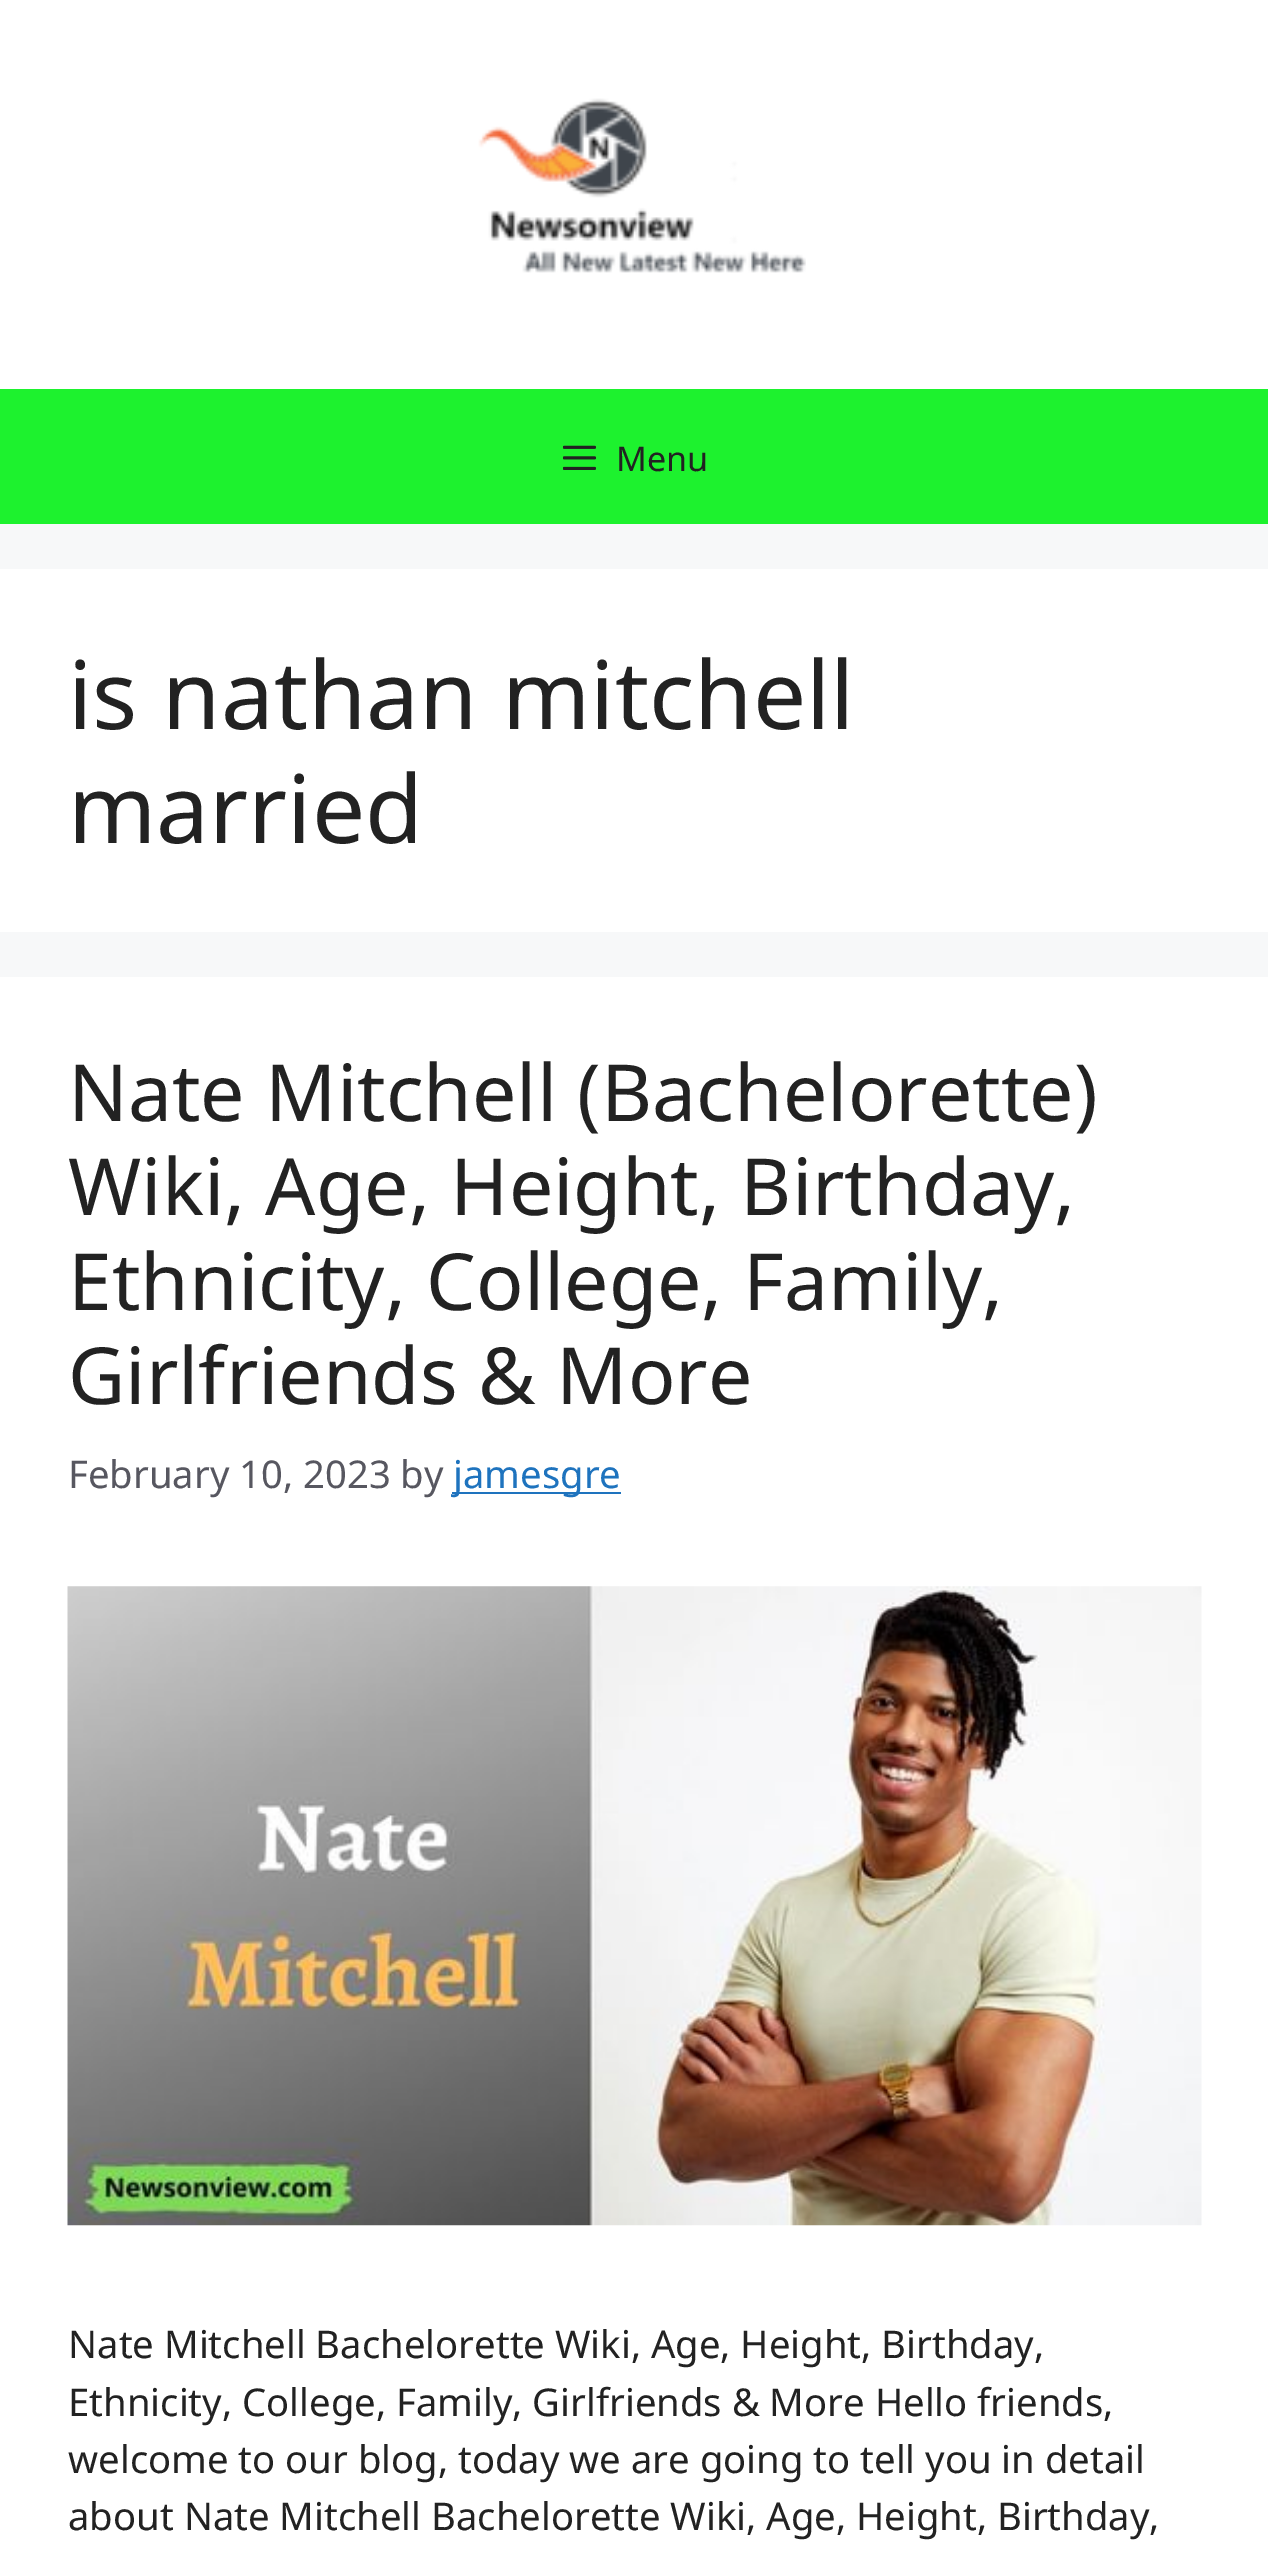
%!PS
<< /PageSize [1268 2557] >> setpagedevice
/C { dup -16 bitshift 255 div exch dup -8 bitshift 255 and 255 div exch 255 and 255 div setrgbcolor } def
/F { [ exch dup neg 0 0 3 -1 roll 0 0 ] selectfont } def
/T { moveto show } def
/R { rectfill } def
/I { 5 dict begin { /h /w /y /x /name } { exch def } forall
  gsave x y translate w h scale
  w h 8 [w 0 0 h 0 0] name (r) file false 3 colorimage grestore end } def
0 2557 translate 1 -1 scale
4 setmiterlimit
16#F7F8F9 C
0 0 1268 2557 R
16#FFFFFF C
0 0 1268 389 R
(1.rgb) 478 98 328 175 I
16#1DF22E C
0 389 1268 135 R
(2.rgb) 563 445 33 25 I
/NotoSans-Regular 34 F
16#222222 C
(Menu) 616 471 T
16#FFFFFF C
0 569 1268 363 R
/NotoSans-Regular 94.5 F
16#222222 C
(is nathan mitchell) 68 729 T
(married) 68 843 T
16#FFFFFF C
0 977 1268 1580 R
/NotoSans-Regular 78.75 F
16#222222 C
(Nate Mitchell \(Bachelorette\)) 68 1121 T
(Wiki, Age, Height, Birthday,) 68 1215 T
(Ethnicity, College, Family,) 68 1310 T
(Girlfriends & More) 68 1404 T
/NotoSans-Regular 38.25 F
16#575760 C
(February 10, 2023 by) 68 1488 T
16#1E73BE C
452 1492 169 2 R
(jamesgre) 453 1488 T
(3.rgb) 67 1586 1135 640 I
16#222222 C
(Nate Mitchell Bachelorette Wiki, Age, Height, Birthday,) 68 2358 T
(Ethnicity, College, Family, Girlfriends & More Hello friends,) 68 2416 T
(welcome to our blog, today we are going to tell you in detail) 68 2473 T
(about Nate Mitchell Bachelorette Wiki, Age, Height, Birthday,) 68 2530 T
showpage
